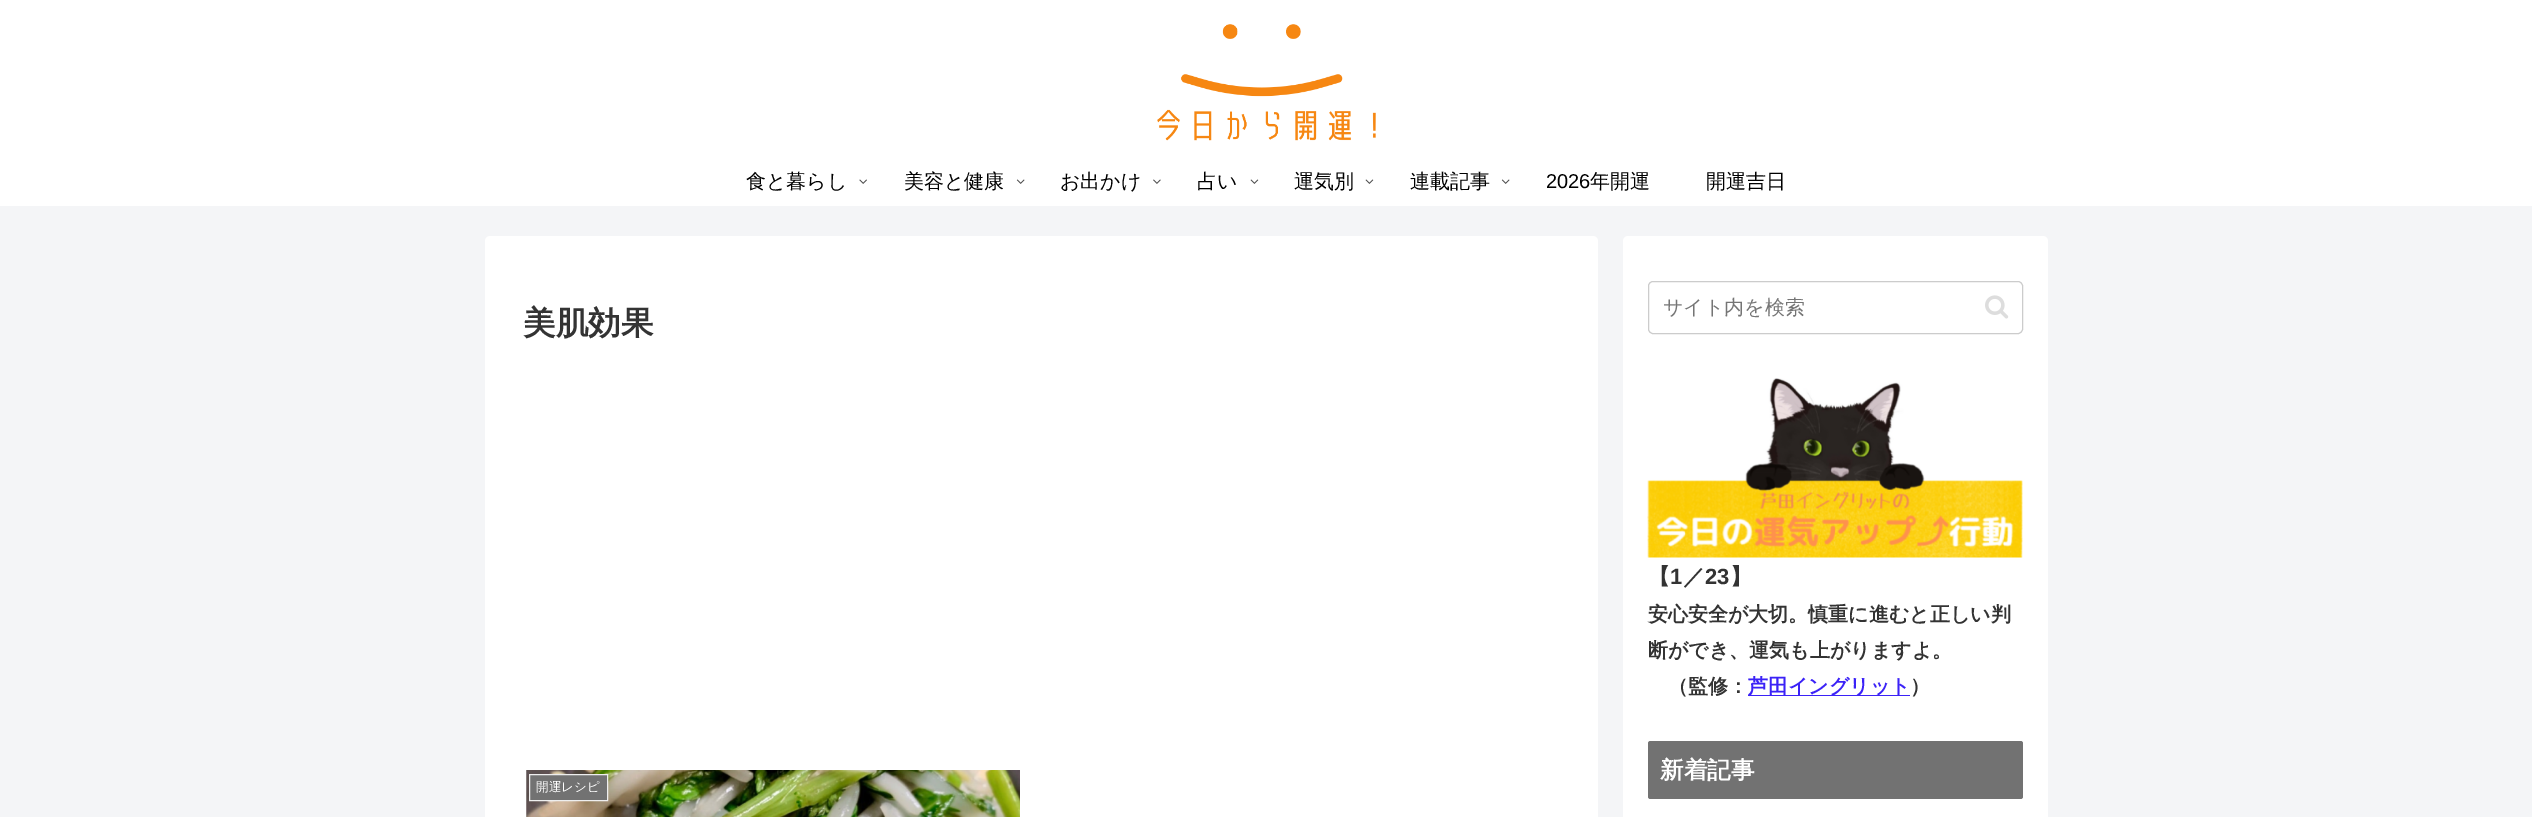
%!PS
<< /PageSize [2532 817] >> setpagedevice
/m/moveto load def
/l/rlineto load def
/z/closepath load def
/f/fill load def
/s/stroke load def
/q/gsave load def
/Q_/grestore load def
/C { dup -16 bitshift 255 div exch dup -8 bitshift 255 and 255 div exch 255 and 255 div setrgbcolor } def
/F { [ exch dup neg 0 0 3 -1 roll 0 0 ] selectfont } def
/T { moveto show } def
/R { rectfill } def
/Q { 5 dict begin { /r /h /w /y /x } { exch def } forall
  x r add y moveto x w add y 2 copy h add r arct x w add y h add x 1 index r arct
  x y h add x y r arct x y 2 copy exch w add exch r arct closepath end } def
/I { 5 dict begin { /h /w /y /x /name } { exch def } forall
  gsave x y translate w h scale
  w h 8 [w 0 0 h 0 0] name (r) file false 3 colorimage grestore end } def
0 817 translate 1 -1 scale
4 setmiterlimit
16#F4F5F7 C
0 0 2532 817 R
16#FFFFFF C
0 0 2532 206 R
(1.rgb) 1157 24 219 117 I
/WenQuanYiZenHei-Medium 20 F
16#000000 C
(食と暮らし) 746 188 T
(2.rgb) 859 179 8 5 I
(美容と健康) 904 188 T
(3.rgb) 1016 179 9 5 I
(お出かけ) 1060 188 T
(4.rgb) 1153 179 8 5 I
(占い) 1197 188 T
(5.rgb) 1250 179 9 5 I
(運気別) 1294 188 T
(5.rgb) 1365 179 9 5 I
(連載記事) 1410 188 T
(3.rgb) 1501 179 9 5 I
/LiberationSans-Regular 20 F
(2026) 1546 188 T
/WenQuanYiZenHei-Medium 20 F
(年開運) 1590 188 T
(開運吉日) 1706 188 T
16#FFFFFF C
485 236 1113 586 5 Q f
/WenQuanYiZenHei-Bold 32.5 F
16#333333 C
(美肌効果) 523 334 T
(6.rgb) 526 770 494 47 I
16#727272 C
529.5 774.5 m 78 0 l 0 26 l -78 0 l z q f Q_
16#EEEEEE C
s
/WenQuanYiZenHei-Medium 12.5 F
16#FFFFFF C
(開運レシピ) 536 791 T
1623 236 425 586 5 Q f
16#CCCCCC C
1648.5 281.5 374 52 4.5 Q s
/WenQuanYiZenHei-Medium 20 F
16#757575 C
(サイト内を検索) 1663 314 T
(7.rgb) 1985 295 24 24 I
(8.rgb) 1647 378 376 180 I
/WenQuanYiZenHei-Bold 22 F
16#333333 C
(【) 1648 584 T
/LiberationSans-Bold 22 F
(1) 1670 584 T
/WenQuanYiZenHei-Bold 22 F
(／) 1683 584 T
/LiberationSans-Bold 22 F
(23) 1705 584 T
/WenQuanYiZenHei-Bold 22 F
(】) 1730 584 T
/WenQuanYiZenHei-Bold 20 F
(安心安全が大切。慎重に進むと正しい判) 1648 621 T
(断ができ、運気も上がりますよ。) 1648 657 T
(（監修：) 1668 693 T
16#3B22F7 C
1748 695 162 1 R
(芦田イングリット) 1748 693 T
16#333333 C
(）) 1910 693 T
16#727272 C
1648 741 375 58 2.5 Q f
/WenQuanYiZenHei-Bold 23.5 F
16#FFFFFF C
(新着記事) 1660 778 T
showpage
